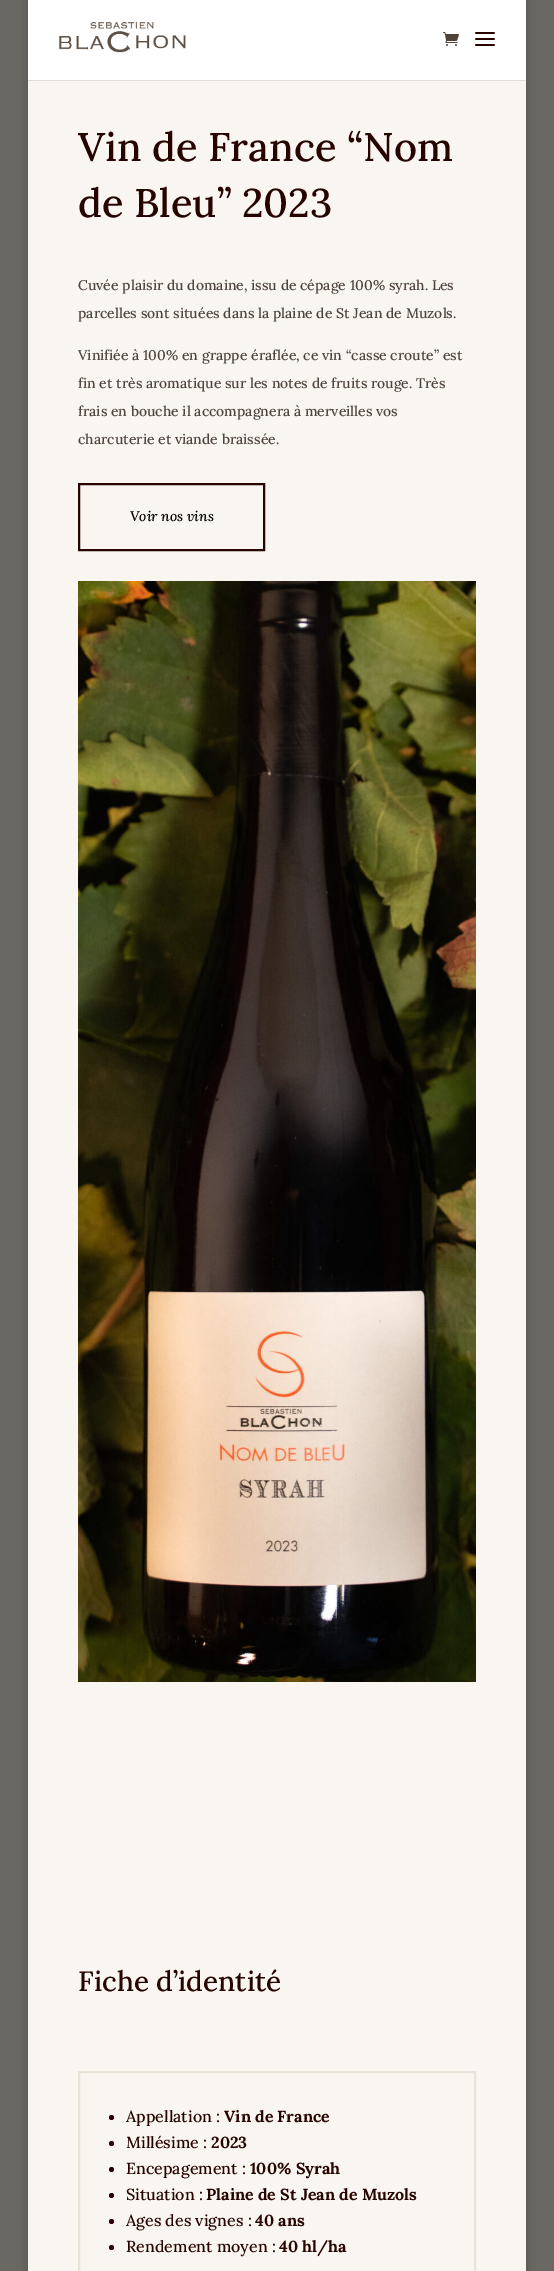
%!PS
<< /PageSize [554 2271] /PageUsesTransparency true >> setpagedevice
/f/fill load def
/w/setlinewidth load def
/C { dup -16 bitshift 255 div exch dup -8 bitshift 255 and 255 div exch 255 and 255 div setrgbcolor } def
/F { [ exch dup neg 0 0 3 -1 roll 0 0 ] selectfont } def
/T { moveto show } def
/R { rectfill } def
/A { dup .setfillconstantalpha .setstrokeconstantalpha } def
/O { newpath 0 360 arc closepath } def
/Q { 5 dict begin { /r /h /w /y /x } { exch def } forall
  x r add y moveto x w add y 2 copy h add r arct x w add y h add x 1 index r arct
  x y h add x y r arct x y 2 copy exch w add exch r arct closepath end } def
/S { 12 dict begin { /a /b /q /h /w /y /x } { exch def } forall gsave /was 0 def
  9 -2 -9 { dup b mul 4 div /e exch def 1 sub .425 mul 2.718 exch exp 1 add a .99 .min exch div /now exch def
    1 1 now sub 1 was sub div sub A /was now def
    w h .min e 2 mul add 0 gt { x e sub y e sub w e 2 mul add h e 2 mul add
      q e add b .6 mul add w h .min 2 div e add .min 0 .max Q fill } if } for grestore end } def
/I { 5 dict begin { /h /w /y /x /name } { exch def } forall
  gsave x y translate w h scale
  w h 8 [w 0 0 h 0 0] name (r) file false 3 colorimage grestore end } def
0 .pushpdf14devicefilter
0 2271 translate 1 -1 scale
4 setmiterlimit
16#6A6863 C
0 0 554 2271 R
16#000000 C
28 0 498 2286 0 5 .2 S
16#E0DDD9 C
28 80 498 1 R
16#FFFFFF C
28 0 498 80 R
(1.rgb) 58 21 128 32 I
(2.rgb) 443 32 16 14 I
(3.rgb) 475 32 20 14 I
16#F9F5F1 C
28 81 498 2190 R
/Lora-Medium 40 F
16#280400 C
(Vin de France “Nom) 78 161 T
(de Bleu” 2023) 78 217 T
/Lora-Medium 14 F
16#4E443C C
(Cuvée plaisir du domaine, issu de cépage 100% syrah. Les) 78 290 T
(parcelles sont situées dans la plaine de St Jean de Muzols.) 78 318 T
(Vinifiée à 100% en grappe éraflée, ce vin “casse croute” est) 78 360 T
(fin et très aromatique sur les notes de fruits rouge. Très) 78 388 T
(frais en bouche il accompagnera à merveilles vos) 78 416 T
(charcuterie et viande braissée.) 78 444 T
16#280400 C
2 w
79 484 185 66 rectstroke
/Lora-MediumItalic 14 F
16#000000 C
(Voir nos vins) 130 521 T
(4.rgb) 78 581 398 1101 I
/Lora-Medium 28 F
16#280400 C
(Fiche d’identité) 78 1991 T
16#E8E2D7 C
79 2072 396 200 rectstroke
16#280400 C
111.5 2117.5 2.5 O f
/Lora-Medium 16 F
(Appellation :) 126 2122 T
/Lora-Bold 16 F
(Vin de France) 224 2122 T
111.5 2143.5 2.5 O f
/Lora-Medium 16 F
(Millésime :) 126 2148 T
/Lora-Bold 16 F
(2023) 211 2148 T
111.5 2169.5 2.5 O f
/Lora-Medium 16 F
(Encepagement :) 126 2174 T
/Lora-Bold 16 F
(100% Syrah) 250 2174 T
111.5 2195.5 2.5 O f
/Lora-Medium 16 F
(Situation :) 126 2200 T
/Lora-Bold 16 F
(Plaine de St Jean de Muzols) 206 2200 T
111.5 2221.5 2.5 O f
/Lora-Medium 16 F
(Ages des vignes :) 126 2226 T
/Lora-Bold 16 F
(40 ans) 255 2226 T
111.5 2247.5 2.5 O f
/Lora-Medium 16 F
(Rendement moyen :) 126 2252 T
/Lora-Bold 16 F
(40 hl/ha) 279 2252 T
.poppdf14devicefilter showpage
